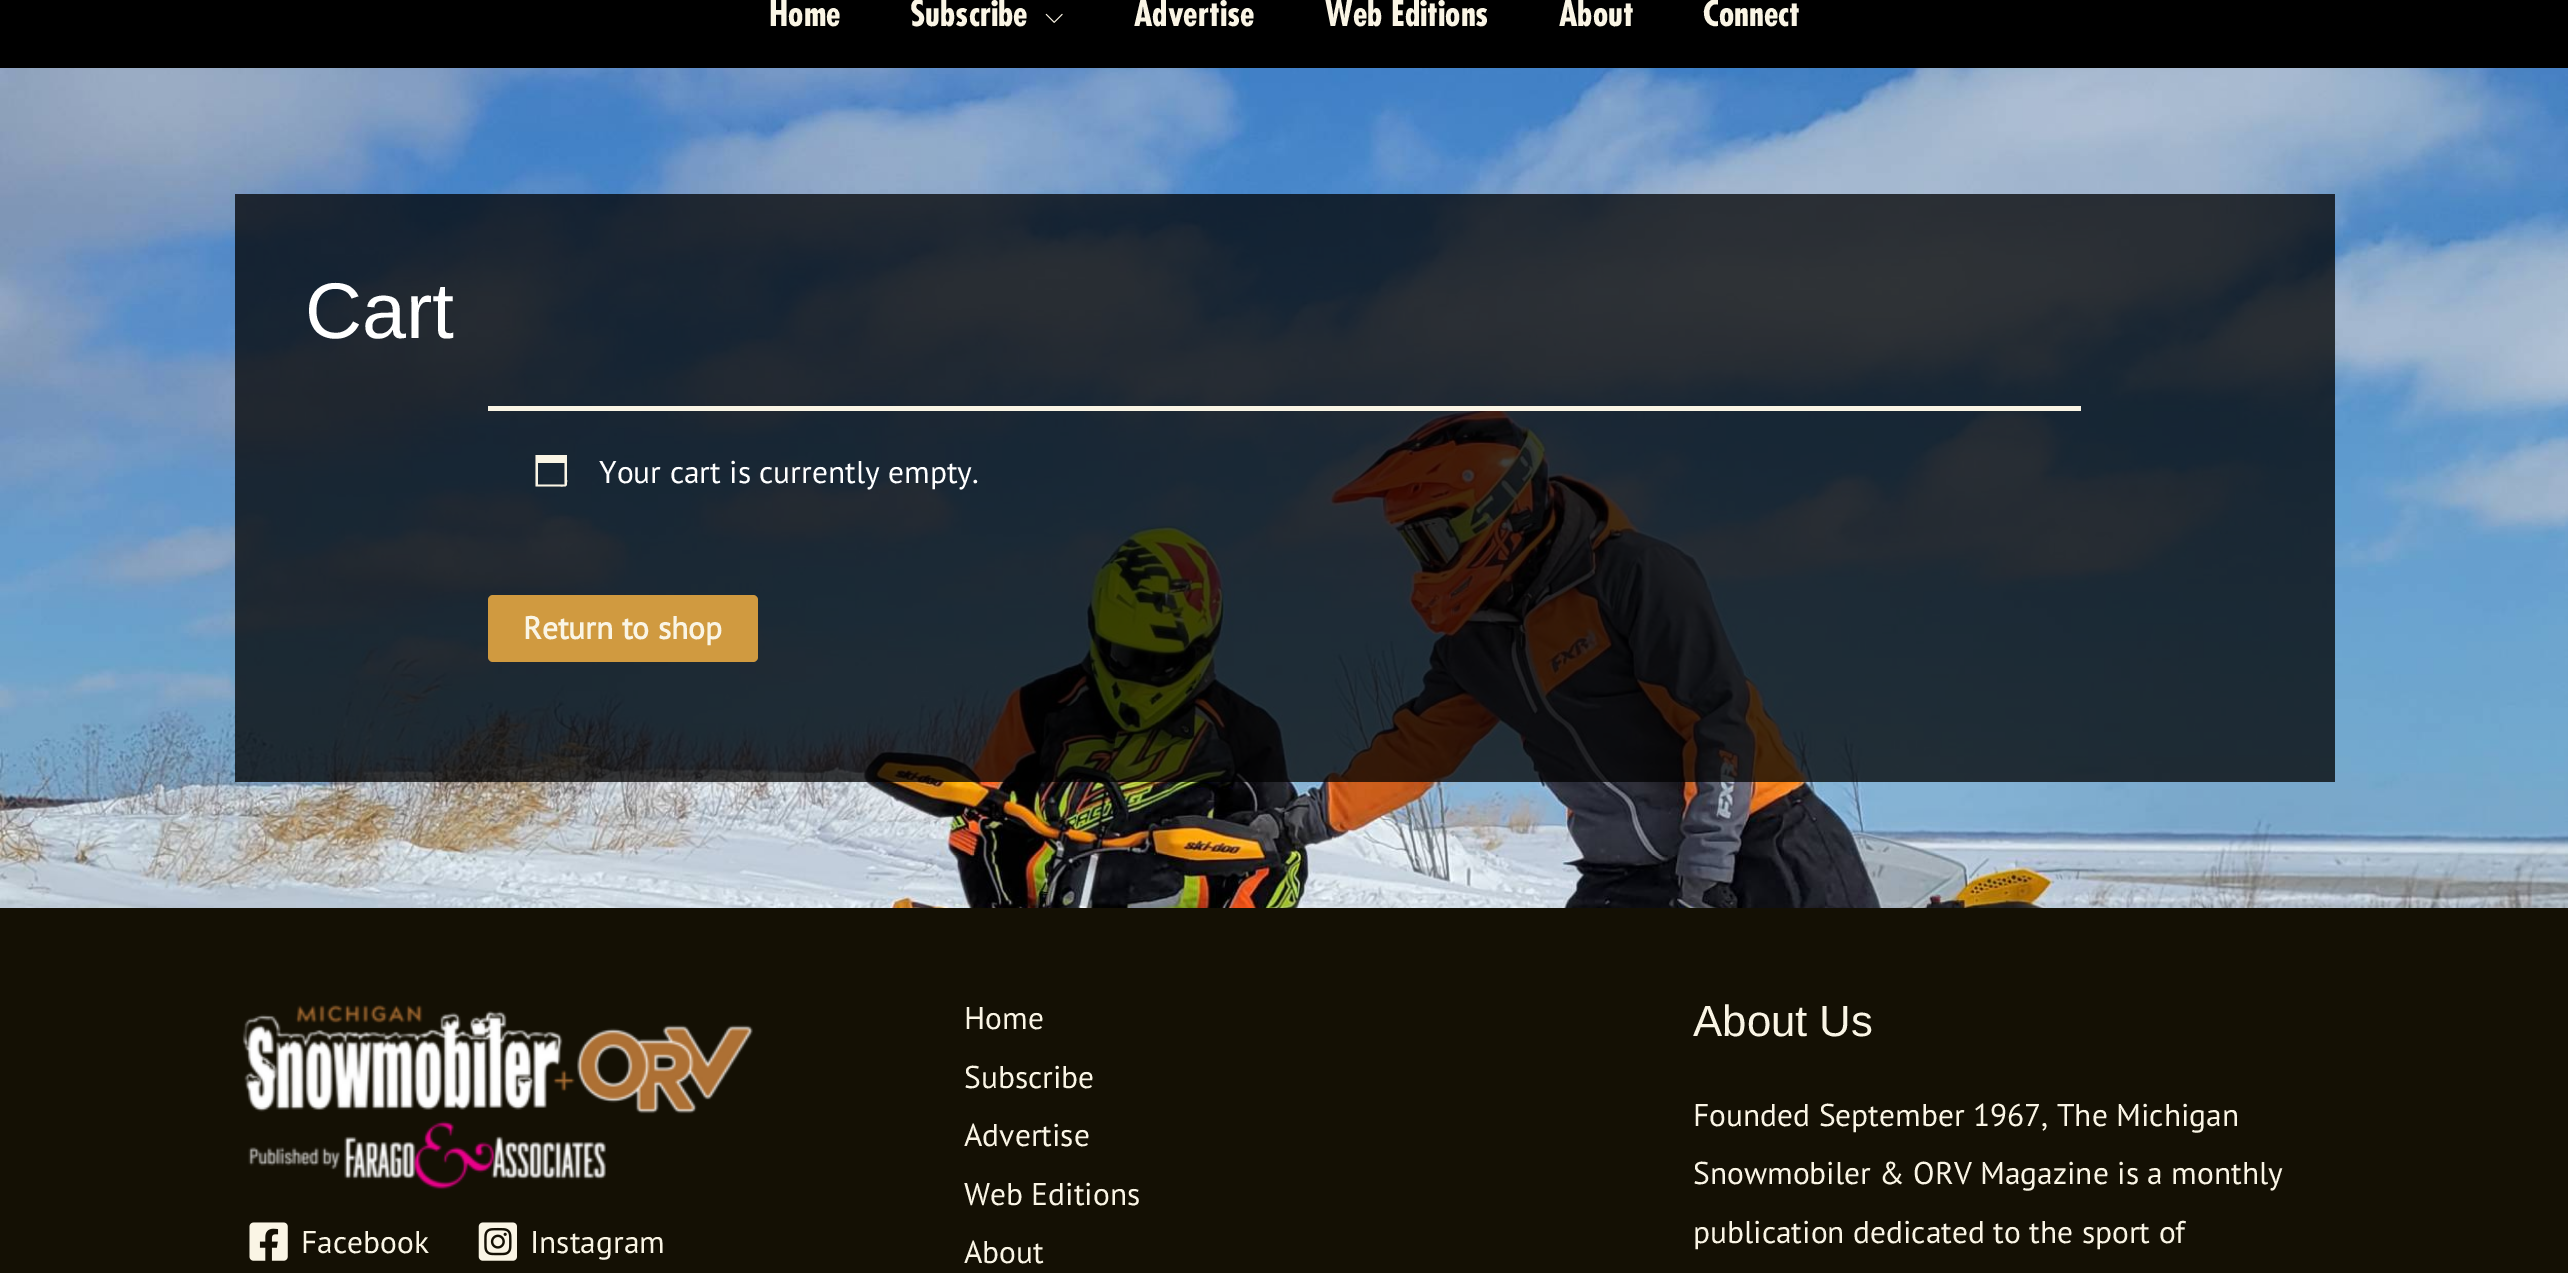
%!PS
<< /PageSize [2568 1273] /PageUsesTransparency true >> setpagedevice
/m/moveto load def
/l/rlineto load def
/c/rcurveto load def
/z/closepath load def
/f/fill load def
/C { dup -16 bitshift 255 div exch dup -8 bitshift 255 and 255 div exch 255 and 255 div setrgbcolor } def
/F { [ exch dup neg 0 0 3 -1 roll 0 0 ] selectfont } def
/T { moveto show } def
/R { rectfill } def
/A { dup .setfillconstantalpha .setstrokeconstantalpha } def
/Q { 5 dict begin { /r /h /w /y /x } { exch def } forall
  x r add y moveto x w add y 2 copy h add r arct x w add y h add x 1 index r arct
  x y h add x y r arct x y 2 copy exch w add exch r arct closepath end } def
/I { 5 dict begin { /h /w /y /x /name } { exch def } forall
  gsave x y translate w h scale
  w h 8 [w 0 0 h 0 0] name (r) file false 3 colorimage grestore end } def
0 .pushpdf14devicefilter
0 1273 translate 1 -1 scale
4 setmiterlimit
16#FFFFFF C
0 0 2568 1273 R
(1.rgb) 0 68 2568 840 I
16#000000 C
0 0 2568 68 R
/Futura-Bold 35 F
16#FAF5E5 C
(Home) 769 26 T
(Subscribe) 910 26 T
(2.rgb) 1045 13 18 10 I
(Advertise) 1134 26 T
(Web Editions) 1325 26 T
(About) 1559 26 T
(Connect) 1703 26 T
0.75 A
16#000000 C
235 194 2100 588 R
/LiberationSans-Regular 79 F
1 A
16#FFFFFF C
(Cart) 305 338 T
16#FAF5E5 C
488 406 1593 5 R
564.5 463 m -26.5 0 l 0 21.5 l 26.5 0 l z 567 455 m 0 24.5 l 0 7.5 .5 7 -7 7 c -24.5 0 l 0 -31.5 l z f
/PTSans-Regular 31.5 F
16#FFFFFF C
(Your cart is currently empty.) 599 483 T
16#D09A40 C
488 595 270 67 5 Q f
/PTSans-Bold 31.5 F
16#FAF5E5 C
(Return to shop) 523 639 T
16#141004 C
0 908 2568 365 R
(3.rgb) 242 1004 511 186 I
(4.rgb) 249 1222 39 39 I
/PTSans-Regular 31.5 F
16#FAF5E5 C
(Facebook) 301 1253 T
(5.rgb) 478 1222 39 39 I
(Instagram) 530 1253 T
(Home) 964 1029 T
(Subscribe) 964 1088 T
(Advertise) 964 1146 T
(Web Editions) 964 1205 T
(About) 964 1263 T
/LiberationSans-Regular 43.75 F
(About Us) 1693 1036 T
/PTSans-Regular 31.5 F
(Founded September 1967, The Michigan) 1693 1126 T
(Snowmobiler & ORV Magazine is a monthly) 1693 1184 T
(publication dedicated to the sport of) 1693 1243 T
.poppdf14devicefilter showpage
